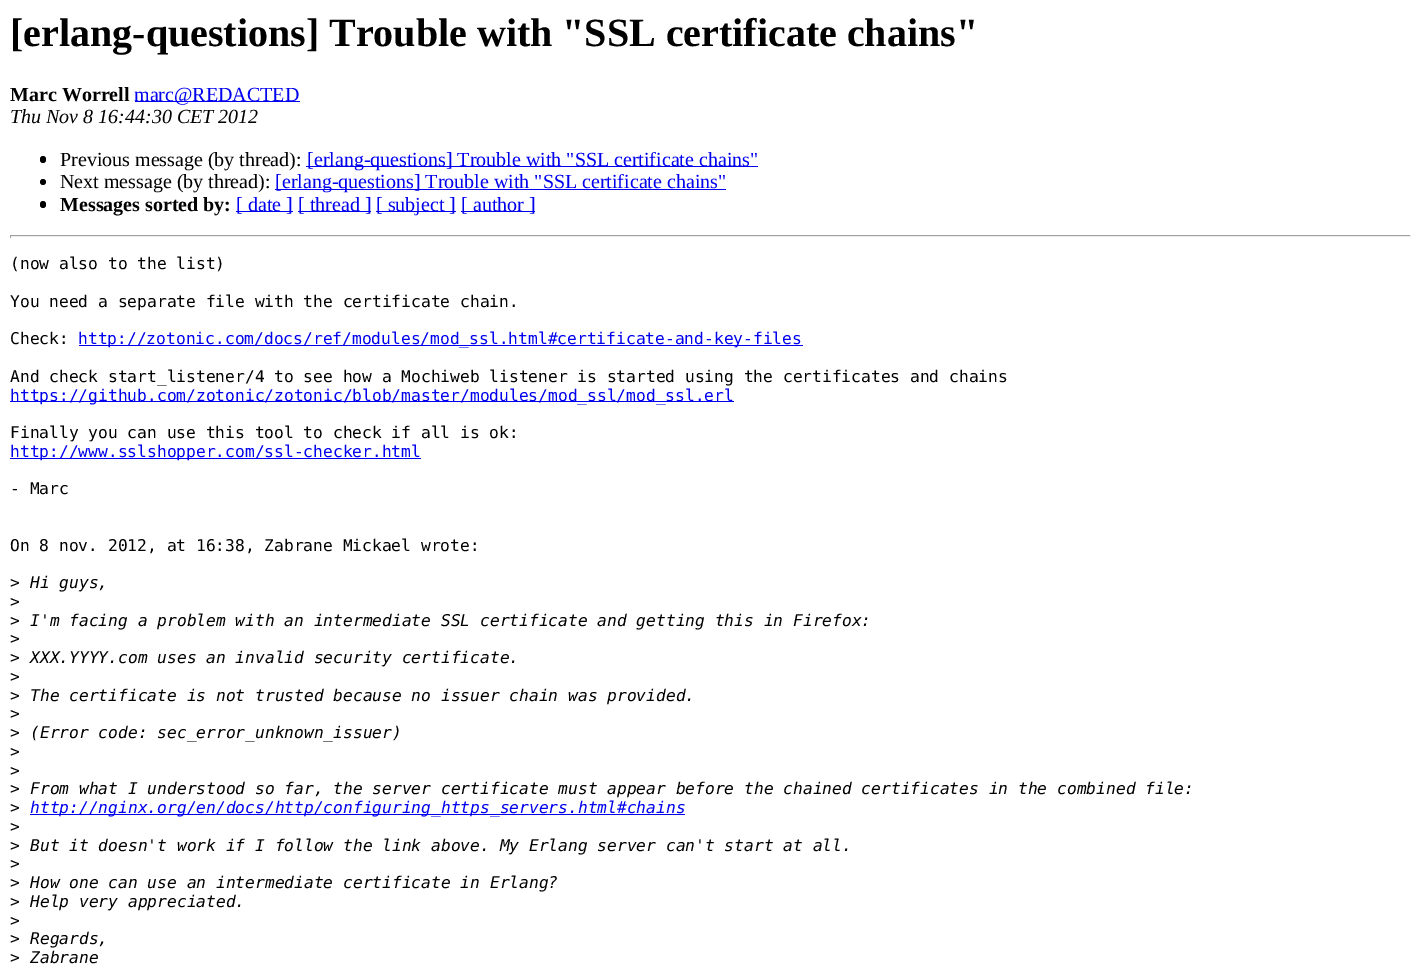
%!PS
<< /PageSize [1421 966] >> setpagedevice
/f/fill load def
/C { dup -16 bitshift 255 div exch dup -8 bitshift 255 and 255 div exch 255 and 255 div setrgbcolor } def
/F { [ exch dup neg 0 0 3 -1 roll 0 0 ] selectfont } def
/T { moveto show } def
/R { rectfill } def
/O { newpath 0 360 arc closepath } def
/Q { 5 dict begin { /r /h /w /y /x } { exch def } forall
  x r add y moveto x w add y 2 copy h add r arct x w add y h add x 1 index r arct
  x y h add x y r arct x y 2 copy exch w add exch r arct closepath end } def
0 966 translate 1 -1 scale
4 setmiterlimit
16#FFFFFF C
0 0 1421 966 R
/LiberationSerif-Bold 40 F
16#000000 C
([erlang-questions] Trouble with "SSL certificate chains") 10 46 T
/LiberationSerif-Bold 20 F
(Marc Worrell) 10 101 T
16#0000EE C
135 101 165 1 R
/LiberationSerif-Regular 20 F
(marc@REDACTED) 134 101 T
/LiberationSerif-Italic 20 F
16#000000 C
(Thu Nov 8 16:44:30 CET 2012) 10 123 T
40 156 6 7 3 Q f
/LiberationSerif-Regular 20 F
(Previous message \(by thread\):) 60 166 T
16#0000EE C
306 166 452 1 R
([erlang-questions] Trouble with "SSL certificate chains") 307 166 T
16#000000 C
43 182 3 O f
(Next message \(by thread\):) 60 188 T
16#0000EE C
275 189 451 1 R
([erlang-questions] Trouble with "SSL certificate chains") 275 188 T
16#000000 C
40 201 6 7 3 Q f
/LiberationSerif-Bold 20 F
(Messages sorted by:) 60 211 T
16#0000EE C
236 211 57 1 R
/LiberationSerif-Regular 20 F
([ date ]) 236 211 T
298 211 73 1 R
([ thread ]) 298 211 T
376 211 80 1 R
([ subject ]) 376 211 T
461 211 74 1 R
([ author ]) 461 211 T
16#9F9F9F C
10 235 1401 1 R
16#EEEEEE C
1410 235 1 3 R
10 236 1401 1 R
16#9F9F9F C
10 235 1 3 R
/DejaVuSansMono-Regular 16.25 F
16#000000 C
(\(now also to the list\)) 10 269 T
(You need a separate file with the certificate chain.) 10 307 T
(Check:) 10 344 T
16#0000EE C
79 345 724 1 R
(http://zotonic.com/docs/ref/modules/mod_ssl.html#certificate-and-key-files) 78 344 T
16#000000 C
(And check start_listener/4 to see how a Mochiweb listener is started using the certificates and chains) 10 382 T
16#0000EE C
10 401 724 1 R
(https://github.com/zotonic/zotonic/blob/master/modules/mod_ssl/mod_ssl.erl) 10 401 T
16#000000 C
(Finally you can use this tool to check if all is ok:) 10 438 T
16#0000EE C
10 458 411 1 R
(http://www.sslshopper.com/ssl-checker.html) 10 457 T
16#000000 C
(- Marc) 10 494 T
(On 8 nov. 2012, at 16:38, Zabrane Mickael wrote:) 10 551 T
(>) 10 588 T
/DejaVuSansMono-Italic 16.25 F
(Hi guys,) 30 588 T
/DejaVuSansMono-Regular 16.25 F
(>) 10 607 T
(>) 10 626 T
/DejaVuSansMono-Italic 16.25 F
(I'm facing a problem with an intermediate SSL certificate and getting this in Firefox:) 30 626 T
/DejaVuSansMono-Regular 16.25 F
(>) 10 644 T
(>) 10 663 T
/DejaVuSansMono-Italic 16.25 F
(XXX.YYYY.com uses an invalid security certificate.) 30 663 T
/DejaVuSansMono-Regular 16.25 F
(>) 10 682 T
(>) 10 701 T
/DejaVuSansMono-Italic 16.25 F
(The certificate is not trusted because no issuer chain was provided.) 30 701 T
/DejaVuSansMono-Regular 16.25 F
(>) 10 719 T
(>) 10 738 T
/DejaVuSansMono-Italic 16.25 F
(\(Error code: sec_error_unknown_issuer\)) 30 738 T
/DejaVuSansMono-Regular 16.25 F
(>) 10 757 T
(>) 10 776 T
(>) 10 794 T
/DejaVuSansMono-Italic 16.25 F
(From what I understood so far, the server certificate must appear before the chained certificates in the combined file:) 30 794 T
/DejaVuSansMono-Regular 16.25 F
(>) 10 813 T
16#0000EE C
30 814 655 1 R
/DejaVuSansMono-Italic 16.25 F
(http://nginx.org/en/docs/http/configuring_https_servers.html#chains) 30 813 T
/DejaVuSansMono-Regular 16.25 F
16#000000 C
(>) 10 832 T
(>) 10 851 T
/DejaVuSansMono-Italic 16.25 F
(But it doesn't work if I follow the link above. My Erlang server can't start at all.) 30 851 T
/DejaVuSansMono-Regular 16.25 F
(>) 10 869 T
(>) 10 888 T
/DejaVuSansMono-Italic 16.25 F
(How one can use an intermediate certificate in Erlang?) 30 888 T
/DejaVuSansMono-Regular 16.25 F
(>) 10 907 T
/DejaVuSansMono-Italic 16.25 F
(Help very appreciated.) 30 907 T
/DejaVuSansMono-Regular 16.25 F
(>) 10 926 T
(>) 10 944 T
/DejaVuSansMono-Italic 16.25 F
(Regards,) 30 944 T
/DejaVuSansMono-Regular 16.25 F
(>) 10 963 T
/DejaVuSansMono-Italic 16.25 F
(Zabrane) 30 963 T
showpage
